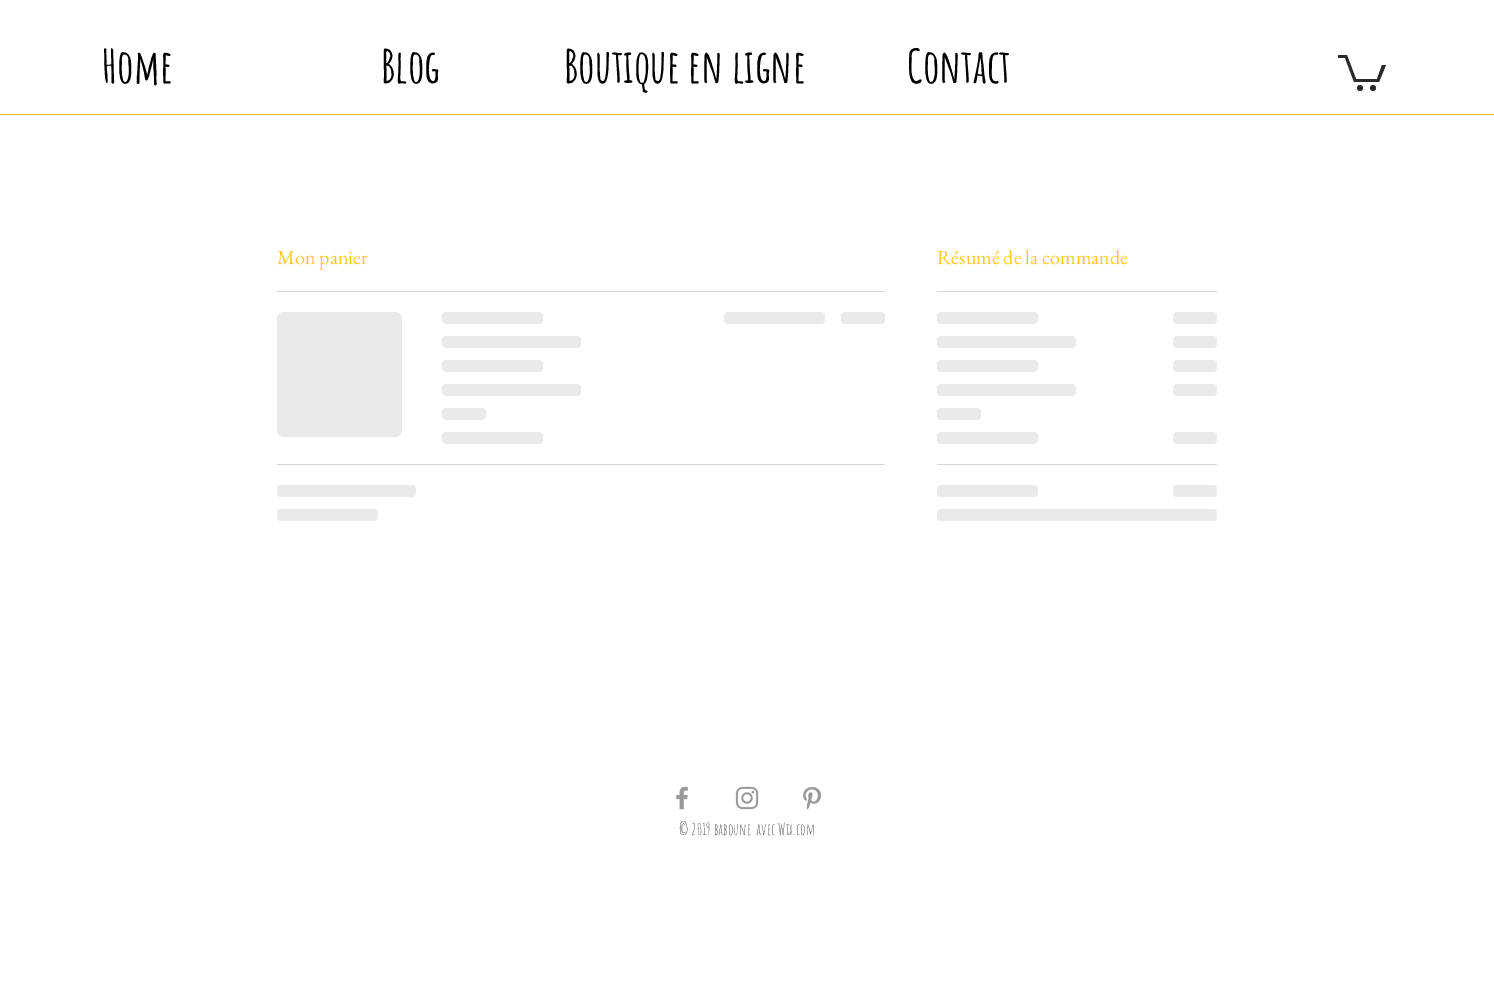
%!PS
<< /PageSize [1494 987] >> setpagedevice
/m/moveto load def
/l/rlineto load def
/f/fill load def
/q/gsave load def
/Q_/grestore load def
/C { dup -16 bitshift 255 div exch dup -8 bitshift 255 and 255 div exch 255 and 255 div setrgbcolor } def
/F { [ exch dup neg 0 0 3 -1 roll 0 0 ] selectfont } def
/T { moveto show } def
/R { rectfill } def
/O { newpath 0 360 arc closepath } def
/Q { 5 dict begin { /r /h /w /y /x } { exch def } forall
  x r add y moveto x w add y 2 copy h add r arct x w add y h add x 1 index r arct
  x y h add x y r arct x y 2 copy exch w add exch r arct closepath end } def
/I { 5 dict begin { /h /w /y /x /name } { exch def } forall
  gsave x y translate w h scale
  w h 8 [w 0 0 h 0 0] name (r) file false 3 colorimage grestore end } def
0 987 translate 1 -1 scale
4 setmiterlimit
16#FFFFFF C
0 0 1494 987 R
/AmaticSC-Bold 46 F
16#000000 C
(Home) 102 83 T
(Blog) 381 83 T
(Boutique en ligne) 564 83 T
(Contact) 907 83 T
16#2A2A2A C
1386 65 m -7 17 l -25 0 l -9 -24 l -7 0 l 0 -3 l 9 0 l 9 24 l 21 0 l 5 -14 l f
1373 88 3 O f
1360 88 3 O f
16#FFC824 C
0 114 1494 1 R
16#D4D4D4 C
277 291 608 1 R
/EBGaramond-Regular 20 F
16#FFC824 C
(Mon panier) 277 264 T
q 277 312 125 125 8 Q clip newpath
<< /ShadingType 2 /ColorSpace /DeviceRGB /Coords [277 375 777 375] /Extend [true true] /Function << /FunctionType 3 /Domain [0 1] /Functions [<< /FunctionType 2 /Domain [0 1] /C0 [.918 .918 .918] /C1 [.918 .918 .918] /N 1 >> << /FunctionType 2 /Domain [0 1] /C0 [.918 .918 .918] /C1 [.831 .831 .831] /N 1 >> << /FunctionType 2 /Domain [0 1] /C0 [.831 .831 .831] /C1 [.918 .918 .918] /N 1 >> << /FunctionType 2 /Domain [0 1] /C0 [.918 .918 .918] /C1 [.918 .918 .918] /N 1 >>] /Bounds [.25 .37 .63] /Encode [0 1 0 1 0 1 0 1] >> >> shfill Q_
q 442 312 101 12 6 Q clip newpath
<< /ShadingType 2 /ColorSpace /DeviceRGB /Coords [442 318 846 318] /Extend [true true] /Function << /FunctionType 3 /Domain [0 1] /Functions [<< /FunctionType 2 /Domain [0 1] /C0 [.918 .918 .918] /C1 [.918 .918 .918] /N 1 >> << /FunctionType 2 /Domain [0 1] /C0 [.918 .918 .918] /C1 [.831 .831 .831] /N 1 >> << /FunctionType 2 /Domain [0 1] /C0 [.831 .831 .831] /C1 [.918 .918 .918] /N 1 >> << /FunctionType 2 /Domain [0 1] /C0 [.918 .918 .918] /C1 [.918 .918 .918] /N 1 >>] /Bounds [.25 .37 .63] /Encode [0 1 0 1 0 1 0 1] >> >> shfill Q_
q 442 336 139 12 6 Q clip newpath
<< /ShadingType 2 /ColorSpace /DeviceRGB /Coords [442 342 998 342] /Extend [true true] /Function << /FunctionType 3 /Domain [0 1] /Functions [<< /FunctionType 2 /Domain [0 1] /C0 [.918 .918 .918] /C1 [.918 .918 .918] /N 1 >> << /FunctionType 2 /Domain [0 1] /C0 [.918 .918 .918] /C1 [.831 .831 .831] /N 1 >> << /FunctionType 2 /Domain [0 1] /C0 [.831 .831 .831] /C1 [.918 .918 .918] /N 1 >> << /FunctionType 2 /Domain [0 1] /C0 [.918 .918 .918] /C1 [.918 .918 .918] /N 1 >>] /Bounds [.25 .37 .63] /Encode [0 1 0 1 0 1 0 1] >> >> shfill Q_
q 442 360 101 12 6 Q clip newpath
<< /ShadingType 2 /ColorSpace /DeviceRGB /Coords [442 366 846 366] /Extend [true true] /Function << /FunctionType 3 /Domain [0 1] /Functions [<< /FunctionType 2 /Domain [0 1] /C0 [.918 .918 .918] /C1 [.918 .918 .918] /N 1 >> << /FunctionType 2 /Domain [0 1] /C0 [.918 .918 .918] /C1 [.831 .831 .831] /N 1 >> << /FunctionType 2 /Domain [0 1] /C0 [.831 .831 .831] /C1 [.918 .918 .918] /N 1 >> << /FunctionType 2 /Domain [0 1] /C0 [.918 .918 .918] /C1 [.918 .918 .918] /N 1 >>] /Bounds [.25 .37 .63] /Encode [0 1 0 1 0 1 0 1] >> >> shfill Q_
q 442 384 139 12 6 Q clip newpath
<< /ShadingType 2 /ColorSpace /DeviceRGB /Coords [442 390 998 390] /Extend [true true] /Function << /FunctionType 3 /Domain [0 1] /Functions [<< /FunctionType 2 /Domain [0 1] /C0 [.918 .918 .918] /C1 [.918 .918 .918] /N 1 >> << /FunctionType 2 /Domain [0 1] /C0 [.918 .918 .918] /C1 [.831 .831 .831] /N 1 >> << /FunctionType 2 /Domain [0 1] /C0 [.831 .831 .831] /C1 [.918 .918 .918] /N 1 >> << /FunctionType 2 /Domain [0 1] /C0 [.918 .918 .918] /C1 [.918 .918 .918] /N 1 >>] /Bounds [.25 .37 .63] /Encode [0 1 0 1 0 1 0 1] >> >> shfill Q_
q 442 408 44 12 6 Q clip newpath
<< /ShadingType 2 /ColorSpace /DeviceRGB /Coords [442 414 618 414] /Extend [true true] /Function << /FunctionType 3 /Domain [0 1] /Functions [<< /FunctionType 2 /Domain [0 1] /C0 [.918 .918 .918] /C1 [.918 .918 .918] /N 1 >> << /FunctionType 2 /Domain [0 1] /C0 [.918 .918 .918] /C1 [.831 .831 .831] /N 1 >> << /FunctionType 2 /Domain [0 1] /C0 [.831 .831 .831] /C1 [.918 .918 .918] /N 1 >> << /FunctionType 2 /Domain [0 1] /C0 [.918 .918 .918] /C1 [.918 .918 .918] /N 1 >>] /Bounds [.25 .37 .63] /Encode [0 1 0 1 0 1 0 1] >> >> shfill Q_
q 442 432 101 12 6 Q clip newpath
<< /ShadingType 2 /ColorSpace /DeviceRGB /Coords [442 438 846 438] /Extend [true true] /Function << /FunctionType 3 /Domain [0 1] /Functions [<< /FunctionType 2 /Domain [0 1] /C0 [.918 .918 .918] /C1 [.918 .918 .918] /N 1 >> << /FunctionType 2 /Domain [0 1] /C0 [.918 .918 .918] /C1 [.831 .831 .831] /N 1 >> << /FunctionType 2 /Domain [0 1] /C0 [.831 .831 .831] /C1 [.918 .918 .918] /N 1 >> << /FunctionType 2 /Domain [0 1] /C0 [.918 .918 .918] /C1 [.918 .918 .918] /N 1 >>] /Bounds [.25 .37 .63] /Encode [0 1 0 1 0 1 0 1] >> >> shfill Q_
q 724 312 101 12 6 Q clip newpath
<< /ShadingType 2 /ColorSpace /DeviceRGB /Coords [724 318 1128 318] /Extend [true true] /Function << /FunctionType 3 /Domain [0 1] /Functions [<< /FunctionType 2 /Domain [0 1] /C0 [.918 .918 .918] /C1 [.918 .918 .918] /N 1 >> << /FunctionType 2 /Domain [0 1] /C0 [.918 .918 .918] /C1 [.831 .831 .831] /N 1 >> << /FunctionType 2 /Domain [0 1] /C0 [.831 .831 .831] /C1 [.918 .918 .918] /N 1 >> << /FunctionType 2 /Domain [0 1] /C0 [.918 .918 .918] /C1 [.918 .918 .918] /N 1 >>] /Bounds [.25 .37 .63] /Encode [0 1 0 1 0 1 0 1] >> >> shfill Q_
q 841 312 44 12 6 Q clip newpath
<< /ShadingType 2 /ColorSpace /DeviceRGB /Coords [841 318 1017 318] /Extend [true true] /Function << /FunctionType 3 /Domain [0 1] /Functions [<< /FunctionType 2 /Domain [0 1] /C0 [.918 .918 .918] /C1 [.918 .918 .918] /N 1 >> << /FunctionType 2 /Domain [0 1] /C0 [.918 .918 .918] /C1 [.831 .831 .831] /N 1 >> << /FunctionType 2 /Domain [0 1] /C0 [.831 .831 .831] /C1 [.918 .918 .918] /N 1 >> << /FunctionType 2 /Domain [0 1] /C0 [.918 .918 .918] /C1 [.918 .918 .918] /N 1 >>] /Bounds [.25 .37 .63] /Encode [0 1 0 1 0 1 0 1] >> >> shfill Q_
16#D4D4D4 C
277 464 608 1 R
q 277 485 139 12 6 Q clip newpath
<< /ShadingType 2 /ColorSpace /DeviceRGB /Coords [277 491 833 491] /Extend [true true] /Function << /FunctionType 3 /Domain [0 1] /Functions [<< /FunctionType 2 /Domain [0 1] /C0 [.918 .918 .918] /C1 [.918 .918 .918] /N 1 >> << /FunctionType 2 /Domain [0 1] /C0 [.918 .918 .918] /C1 [.831 .831 .831] /N 1 >> << /FunctionType 2 /Domain [0 1] /C0 [.831 .831 .831] /C1 [.918 .918 .918] /N 1 >> << /FunctionType 2 /Domain [0 1] /C0 [.918 .918 .918] /C1 [.918 .918 .918] /N 1 >>] /Bounds [.25 .37 .63] /Encode [0 1 0 1 0 1 0 1] >> >> shfill Q_
q 277 509 101 12 6 Q clip newpath
<< /ShadingType 2 /ColorSpace /DeviceRGB /Coords [277 515 681 515] /Extend [true true] /Function << /FunctionType 3 /Domain [0 1] /Functions [<< /FunctionType 2 /Domain [0 1] /C0 [.918 .918 .918] /C1 [.918 .918 .918] /N 1 >> << /FunctionType 2 /Domain [0 1] /C0 [.918 .918 .918] /C1 [.831 .831 .831] /N 1 >> << /FunctionType 2 /Domain [0 1] /C0 [.831 .831 .831] /C1 [.918 .918 .918] /N 1 >> << /FunctionType 2 /Domain [0 1] /C0 [.918 .918 .918] /C1 [.918 .918 .918] /N 1 >>] /Bounds [.25 .37 .63] /Encode [0 1 0 1 0 1 0 1] >> >> shfill Q_
937 291 280 1 R
16#FFC824 C
(Résumé de la commande) 937 264 T
q 937 312 101 12 6 Q clip newpath
<< /ShadingType 2 /ColorSpace /DeviceRGB /Coords [937 318 1341 318] /Extend [true true] /Function << /FunctionType 3 /Domain [0 1] /Functions [<< /FunctionType 2 /Domain [0 1] /C0 [.918 .918 .918] /C1 [.918 .918 .918] /N 1 >> << /FunctionType 2 /Domain [0 1] /C0 [.918 .918 .918] /C1 [.831 .831 .831] /N 1 >> << /FunctionType 2 /Domain [0 1] /C0 [.831 .831 .831] /C1 [.918 .918 .918] /N 1 >> << /FunctionType 2 /Domain [0 1] /C0 [.918 .918 .918] /C1 [.918 .918 .918] /N 1 >>] /Bounds [.25 .37 .63] /Encode [0 1 0 1 0 1 0 1] >> >> shfill Q_
q 1173 312 44 12 6 Q clip newpath
<< /ShadingType 2 /ColorSpace /DeviceRGB /Coords [1173 318 1349 318] /Extend [true true] /Function << /FunctionType 3 /Domain [0 1] /Functions [<< /FunctionType 2 /Domain [0 1] /C0 [.918 .918 .918] /C1 [.918 .918 .918] /N 1 >> << /FunctionType 2 /Domain [0 1] /C0 [.918 .918 .918] /C1 [.831 .831 .831] /N 1 >> << /FunctionType 2 /Domain [0 1] /C0 [.831 .831 .831] /C1 [.918 .918 .918] /N 1 >> << /FunctionType 2 /Domain [0 1] /C0 [.918 .918 .918] /C1 [.918 .918 .918] /N 1 >>] /Bounds [.25 .37 .63] /Encode [0 1 0 1 0 1 0 1] >> >> shfill Q_
q 937 336 139 12 6 Q clip newpath
<< /ShadingType 2 /ColorSpace /DeviceRGB /Coords [937 342 1493 342] /Extend [true true] /Function << /FunctionType 3 /Domain [0 1] /Functions [<< /FunctionType 2 /Domain [0 1] /C0 [.918 .918 .918] /C1 [.918 .918 .918] /N 1 >> << /FunctionType 2 /Domain [0 1] /C0 [.918 .918 .918] /C1 [.831 .831 .831] /N 1 >> << /FunctionType 2 /Domain [0 1] /C0 [.831 .831 .831] /C1 [.918 .918 .918] /N 1 >> << /FunctionType 2 /Domain [0 1] /C0 [.918 .918 .918] /C1 [.918 .918 .918] /N 1 >>] /Bounds [.25 .37 .63] /Encode [0 1 0 1 0 1 0 1] >> >> shfill Q_
q 1173 336 44 12 6 Q clip newpath
<< /ShadingType 2 /ColorSpace /DeviceRGB /Coords [1173 342 1349 342] /Extend [true true] /Function << /FunctionType 3 /Domain [0 1] /Functions [<< /FunctionType 2 /Domain [0 1] /C0 [.918 .918 .918] /C1 [.918 .918 .918] /N 1 >> << /FunctionType 2 /Domain [0 1] /C0 [.918 .918 .918] /C1 [.831 .831 .831] /N 1 >> << /FunctionType 2 /Domain [0 1] /C0 [.831 .831 .831] /C1 [.918 .918 .918] /N 1 >> << /FunctionType 2 /Domain [0 1] /C0 [.918 .918 .918] /C1 [.918 .918 .918] /N 1 >>] /Bounds [.25 .37 .63] /Encode [0 1 0 1 0 1 0 1] >> >> shfill Q_
q 937 360 101 12 6 Q clip newpath
<< /ShadingType 2 /ColorSpace /DeviceRGB /Coords [937 366 1341 366] /Extend [true true] /Function << /FunctionType 3 /Domain [0 1] /Functions [<< /FunctionType 2 /Domain [0 1] /C0 [.918 .918 .918] /C1 [.918 .918 .918] /N 1 >> << /FunctionType 2 /Domain [0 1] /C0 [.918 .918 .918] /C1 [.831 .831 .831] /N 1 >> << /FunctionType 2 /Domain [0 1] /C0 [.831 .831 .831] /C1 [.918 .918 .918] /N 1 >> << /FunctionType 2 /Domain [0 1] /C0 [.918 .918 .918] /C1 [.918 .918 .918] /N 1 >>] /Bounds [.25 .37 .63] /Encode [0 1 0 1 0 1 0 1] >> >> shfill Q_
q 1173 360 44 12 6 Q clip newpath
<< /ShadingType 2 /ColorSpace /DeviceRGB /Coords [1173 366 1349 366] /Extend [true true] /Function << /FunctionType 3 /Domain [0 1] /Functions [<< /FunctionType 2 /Domain [0 1] /C0 [.918 .918 .918] /C1 [.918 .918 .918] /N 1 >> << /FunctionType 2 /Domain [0 1] /C0 [.918 .918 .918] /C1 [.831 .831 .831] /N 1 >> << /FunctionType 2 /Domain [0 1] /C0 [.831 .831 .831] /C1 [.918 .918 .918] /N 1 >> << /FunctionType 2 /Domain [0 1] /C0 [.918 .918 .918] /C1 [.918 .918 .918] /N 1 >>] /Bounds [.25 .37 .63] /Encode [0 1 0 1 0 1 0 1] >> >> shfill Q_
q 937 384 139 12 6 Q clip newpath
<< /ShadingType 2 /ColorSpace /DeviceRGB /Coords [937 390 1493 390] /Extend [true true] /Function << /FunctionType 3 /Domain [0 1] /Functions [<< /FunctionType 2 /Domain [0 1] /C0 [.918 .918 .918] /C1 [.918 .918 .918] /N 1 >> << /FunctionType 2 /Domain [0 1] /C0 [.918 .918 .918] /C1 [.831 .831 .831] /N 1 >> << /FunctionType 2 /Domain [0 1] /C0 [.831 .831 .831] /C1 [.918 .918 .918] /N 1 >> << /FunctionType 2 /Domain [0 1] /C0 [.918 .918 .918] /C1 [.918 .918 .918] /N 1 >>] /Bounds [.25 .37 .63] /Encode [0 1 0 1 0 1 0 1] >> >> shfill Q_
q 1173 384 44 12 6 Q clip newpath
<< /ShadingType 2 /ColorSpace /DeviceRGB /Coords [1173 390 1349 390] /Extend [true true] /Function << /FunctionType 3 /Domain [0 1] /Functions [<< /FunctionType 2 /Domain [0 1] /C0 [.918 .918 .918] /C1 [.918 .918 .918] /N 1 >> << /FunctionType 2 /Domain [0 1] /C0 [.918 .918 .918] /C1 [.831 .831 .831] /N 1 >> << /FunctionType 2 /Domain [0 1] /C0 [.831 .831 .831] /C1 [.918 .918 .918] /N 1 >> << /FunctionType 2 /Domain [0 1] /C0 [.918 .918 .918] /C1 [.918 .918 .918] /N 1 >>] /Bounds [.25 .37 .63] /Encode [0 1 0 1 0 1 0 1] >> >> shfill Q_
q 937 408 44 12 6 Q clip newpath
<< /ShadingType 2 /ColorSpace /DeviceRGB /Coords [937 414 1113 414] /Extend [true true] /Function << /FunctionType 3 /Domain [0 1] /Functions [<< /FunctionType 2 /Domain [0 1] /C0 [.918 .918 .918] /C1 [.918 .918 .918] /N 1 >> << /FunctionType 2 /Domain [0 1] /C0 [.918 .918 .918] /C1 [.831 .831 .831] /N 1 >> << /FunctionType 2 /Domain [0 1] /C0 [.831 .831 .831] /C1 [.918 .918 .918] /N 1 >> << /FunctionType 2 /Domain [0 1] /C0 [.918 .918 .918] /C1 [.918 .918 .918] /N 1 >>] /Bounds [.25 .37 .63] /Encode [0 1 0 1 0 1 0 1] >> >> shfill Q_
q 937 432 101 12 6 Q clip newpath
<< /ShadingType 2 /ColorSpace /DeviceRGB /Coords [937 438 1341 438] /Extend [true true] /Function << /FunctionType 3 /Domain [0 1] /Functions [<< /FunctionType 2 /Domain [0 1] /C0 [.918 .918 .918] /C1 [.918 .918 .918] /N 1 >> << /FunctionType 2 /Domain [0 1] /C0 [.918 .918 .918] /C1 [.831 .831 .831] /N 1 >> << /FunctionType 2 /Domain [0 1] /C0 [.831 .831 .831] /C1 [.918 .918 .918] /N 1 >> << /FunctionType 2 /Domain [0 1] /C0 [.918 .918 .918] /C1 [.918 .918 .918] /N 1 >>] /Bounds [.25 .37 .63] /Encode [0 1 0 1 0 1 0 1] >> >> shfill Q_
q 1173 432 44 12 6 Q clip newpath
<< /ShadingType 2 /ColorSpace /DeviceRGB /Coords [1173 438 1349 438] /Extend [true true] /Function << /FunctionType 3 /Domain [0 1] /Functions [<< /FunctionType 2 /Domain [0 1] /C0 [.918 .918 .918] /C1 [.918 .918 .918] /N 1 >> << /FunctionType 2 /Domain [0 1] /C0 [.918 .918 .918] /C1 [.831 .831 .831] /N 1 >> << /FunctionType 2 /Domain [0 1] /C0 [.831 .831 .831] /C1 [.918 .918 .918] /N 1 >> << /FunctionType 2 /Domain [0 1] /C0 [.918 .918 .918] /C1 [.918 .918 .918] /N 1 >>] /Bounds [.25 .37 .63] /Encode [0 1 0 1 0 1 0 1] >> >> shfill Q_
16#D4D4D4 C
937 464 280 1 R
q 937 485 101 12 6 Q clip newpath
<< /ShadingType 2 /ColorSpace /DeviceRGB /Coords [937 491 1341 491] /Extend [true true] /Function << /FunctionType 3 /Domain [0 1] /Functions [<< /FunctionType 2 /Domain [0 1] /C0 [.918 .918 .918] /C1 [.918 .918 .918] /N 1 >> << /FunctionType 2 /Domain [0 1] /C0 [.918 .918 .918] /C1 [.831 .831 .831] /N 1 >> << /FunctionType 2 /Domain [0 1] /C0 [.831 .831 .831] /C1 [.918 .918 .918] /N 1 >> << /FunctionType 2 /Domain [0 1] /C0 [.918 .918 .918] /C1 [.918 .918 .918] /N 1 >>] /Bounds [.25 .37 .63] /Encode [0 1 0 1 0 1 0 1] >> >> shfill Q_
q 1173 485 44 12 6 Q clip newpath
<< /ShadingType 2 /ColorSpace /DeviceRGB /Coords [1173 491 1349 491] /Extend [true true] /Function << /FunctionType 3 /Domain [0 1] /Functions [<< /FunctionType 2 /Domain [0 1] /C0 [.918 .918 .918] /C1 [.918 .918 .918] /N 1 >> << /FunctionType 2 /Domain [0 1] /C0 [.918 .918 .918] /C1 [.831 .831 .831] /N 1 >> << /FunctionType 2 /Domain [0 1] /C0 [.831 .831 .831] /C1 [.918 .918 .918] /N 1 >> << /FunctionType 2 /Domain [0 1] /C0 [.918 .918 .918] /C1 [.918 .918 .918] /N 1 >>] /Bounds [.25 .37 .63] /Encode [0 1 0 1 0 1 0 1] >> >> shfill Q_
q 937 509 280 12 6 Q clip newpath
<< /ShadingType 2 /ColorSpace /DeviceRGB /Coords [937 515 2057 515] /Extend [true true] /Function << /FunctionType 3 /Domain [0 1] /Functions [<< /FunctionType 2 /Domain [0 1] /C0 [.918 .918 .918] /C1 [.918 .918 .918] /N 1 >> << /FunctionType 2 /Domain [0 1] /C0 [.918 .918 .918] /C1 [.831 .831 .831] /N 1 >> << /FunctionType 2 /Domain [0 1] /C0 [.831 .831 .831] /C1 [.918 .918 .918] /N 1 >> << /FunctionType 2 /Domain [0 1] /C0 [.918 .918 .918] /C1 [.918 .918 .918] /N 1 >>] /Bounds [.25 .37 .63] /Encode [0 1 0 1 0 1 0 1] >> >> shfill Q_
(1.rgb) 676 786 12 24 I
(2.rgb) 735 786 24 24 I
(3.rgb) 803 786 19 24 I
/AmaticSC-Regular 16 F
16#555555 C
(© 2019 baboune  avec Wix.com) 679 835 T
showpage
